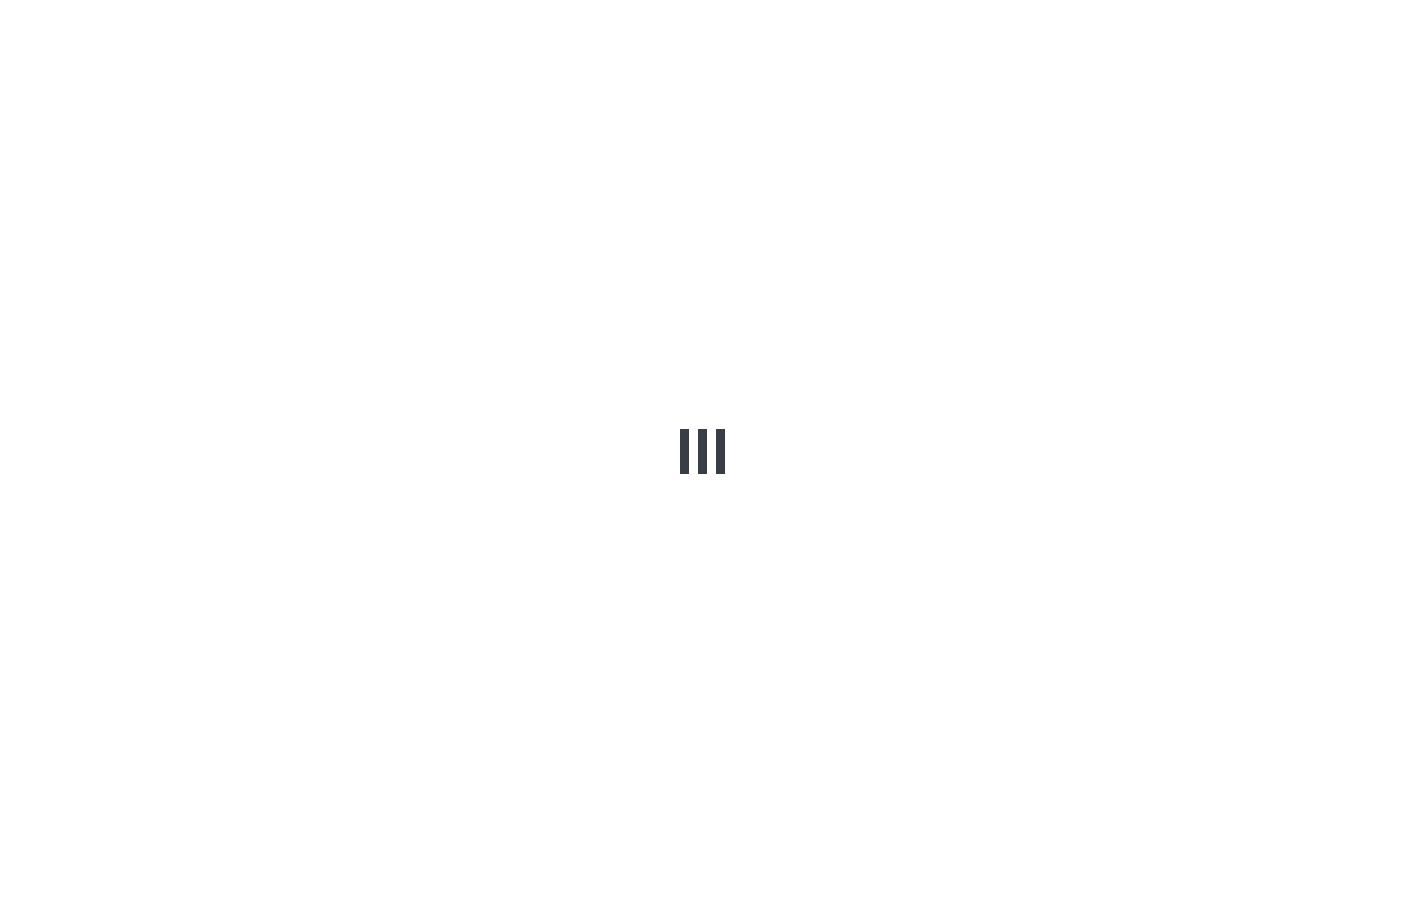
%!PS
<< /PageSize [1404 902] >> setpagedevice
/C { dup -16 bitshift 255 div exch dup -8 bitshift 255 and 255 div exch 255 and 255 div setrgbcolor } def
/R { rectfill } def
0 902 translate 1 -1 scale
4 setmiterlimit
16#FFFFFF C
0 0 1404 902 R
16#393E46 C
716 429 9 45 R
698 429 9 45 R
680 429 9 45 R
showpage
